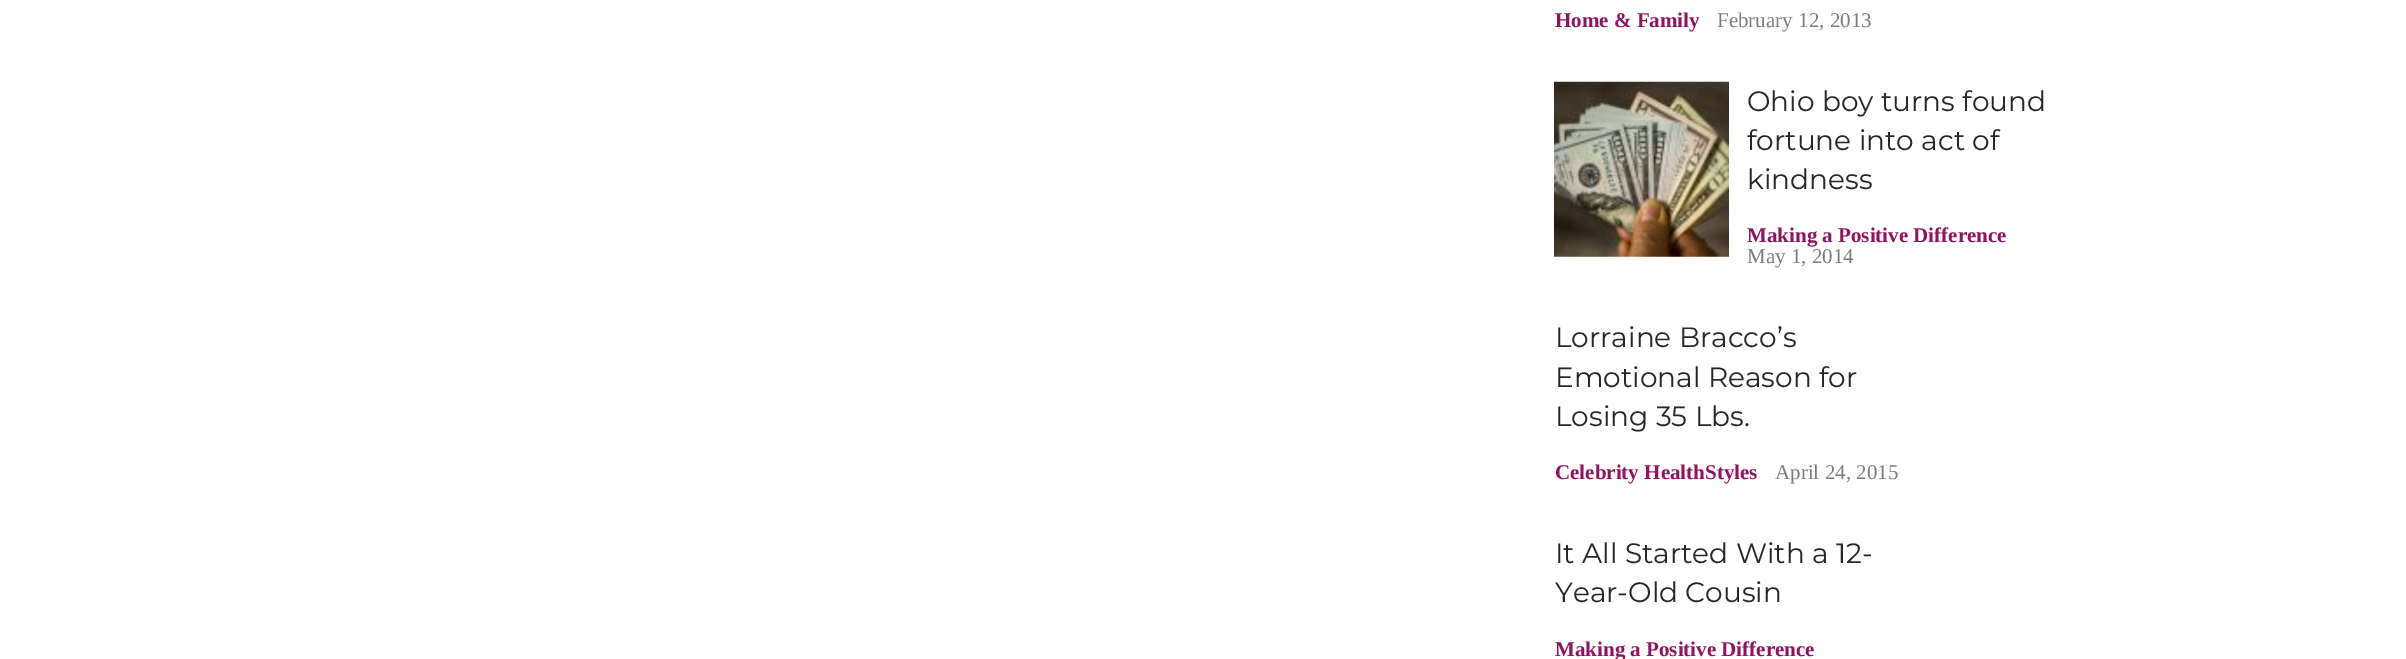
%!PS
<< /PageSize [2406 659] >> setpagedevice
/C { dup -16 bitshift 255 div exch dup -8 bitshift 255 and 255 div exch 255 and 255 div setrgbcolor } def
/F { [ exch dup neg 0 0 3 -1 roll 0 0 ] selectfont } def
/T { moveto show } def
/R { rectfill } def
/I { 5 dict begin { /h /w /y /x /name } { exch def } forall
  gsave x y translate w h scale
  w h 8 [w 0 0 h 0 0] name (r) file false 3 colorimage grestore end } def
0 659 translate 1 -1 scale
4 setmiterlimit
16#FFFFFF C
0 0 2406 659 R
/LiberationSerif-Bold 21 F
16#91125F C
(Home & Family) 1555 27 T
/LiberationSerif-Regular 21 F
16#7C7C7C C
(February 12, 2013) 1717 27 T
(1.rgb) 1554 81 175 176 I
/Montserrat-Thin 28 F
16#25282A C
(Ohio boy turns found) 1747 111 T
(fortune into act of) 1747 150 T
(kindness) 1747 189 T
/LiberationSerif-Bold 21 F
16#91125F C
(Making a Positive Difference) 1747 242 T
/LiberationSerif-Regular 21 F
16#7C7C7C C
(May 1, 2014) 1747 263 T
/Montserrat-Thin 28 F
16#25282A C
(Lorraine Bracco’s) 1555 347 T
(Emotional Reason for) 1555 387 T
(Losing 35 Lbs.) 1555 426 T
/LiberationSerif-Bold 21 F
16#91125F C
(Celebrity HealthStyles) 1555 479 T
/LiberationSerif-Regular 21 F
16#7C7C7C C
(April 24, 2015) 1775 479 T
/Montserrat-Thin 28 F
16#25282A C
(It All Started With a 12-) 1555 563 T
(Year-Old Cousin) 1555 602 T
/LiberationSerif-Bold 21 F
16#91125F C
(Making a Positive Difference) 1555 656 T
showpage
